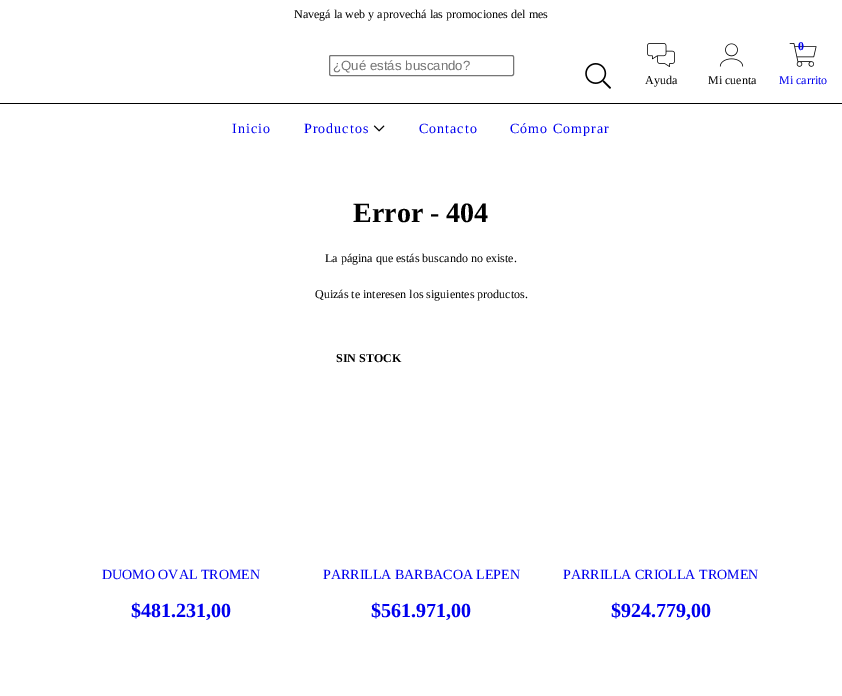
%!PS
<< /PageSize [842 696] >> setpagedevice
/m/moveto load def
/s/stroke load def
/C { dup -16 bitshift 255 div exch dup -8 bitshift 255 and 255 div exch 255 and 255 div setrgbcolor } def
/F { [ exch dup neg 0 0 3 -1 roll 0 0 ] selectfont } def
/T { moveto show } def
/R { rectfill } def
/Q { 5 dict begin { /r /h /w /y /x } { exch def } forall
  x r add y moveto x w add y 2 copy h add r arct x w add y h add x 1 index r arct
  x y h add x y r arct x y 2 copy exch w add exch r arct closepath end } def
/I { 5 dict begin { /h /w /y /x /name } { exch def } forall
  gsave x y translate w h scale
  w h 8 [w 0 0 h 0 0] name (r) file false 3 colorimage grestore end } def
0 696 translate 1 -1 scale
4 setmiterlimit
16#FFFFFF C
0 0 842 696 R
/LiberationSerif-Regular 12 F
16#000000 C
(Navegá la web y aprovechá las promociones del mes) 294 18 T
16#767676 C
329.5 55.5 184 20 1.5 Q s
/LiberationSans-Regular 13.25 F
16#757575 C
(¿Qué estás buscando?) 333 70 T
(1.rgb) 585 63 26 26 I
(2.rgb) 647 43 28 24 I
/LiberationSerif-Regular 12 F
16#000000 C
(Ayuda) 645 84 T
(3.rgb) 719 43 25 24 I
(Mi cuenta) 708 84 T
(4.rgb) 789 43 28 24 I
/LiberationSerif-Bold 12 F
16#0000EE C
(0) 798 50 T
/LiberationSerif-Regular 12 F
(Mi carrito) 779 84 T
16#000000 C
0 103 842 1 R
/LiberationSerif-Regular 14 F
16#0000EE C
232 133 m 1 0 (Inicio) ashow
304 133 m 1 0 (Productos) ashow
(5.rgb) 373 125 12 7 I
419 133 m 1 0 (Contacto) ashow
510 133 m 1 0 (Cómo Comprar) ashow
/LiberationSerif-Bold 28 F
16#000000 C
(Error - 404) 353 222 T
/LiberationSerif-Regular 12 F
(La página que estás buscando no existe.) 325 262 T
(Quizás te interesen los siguientes productos.) 315 298 T
/LiberationSerif-Regular 14 F
16#0000EE C
(DUOMO OVAL TROMEN) 102 579 T
/LiberationSerif-Bold 20 F
($481.231,00) 131 617 T
/LiberationSerif-Bold 12 F
16#000000 C
(SIN STOCK) 336 362 T
/LiberationSerif-Regular 14 F
16#0000EE C
(PARRILLA BARBACOA LEPEN) 323 579 T
/LiberationSerif-Bold 20 F
($561.971,00) 371 617 T
/LiberationSerif-Regular 14 F
(PARRILLA CRIOLLA TROMEN) 563 579 T
/LiberationSerif-Bold 20 F
($924.779,00) 611 617 T
showpage
